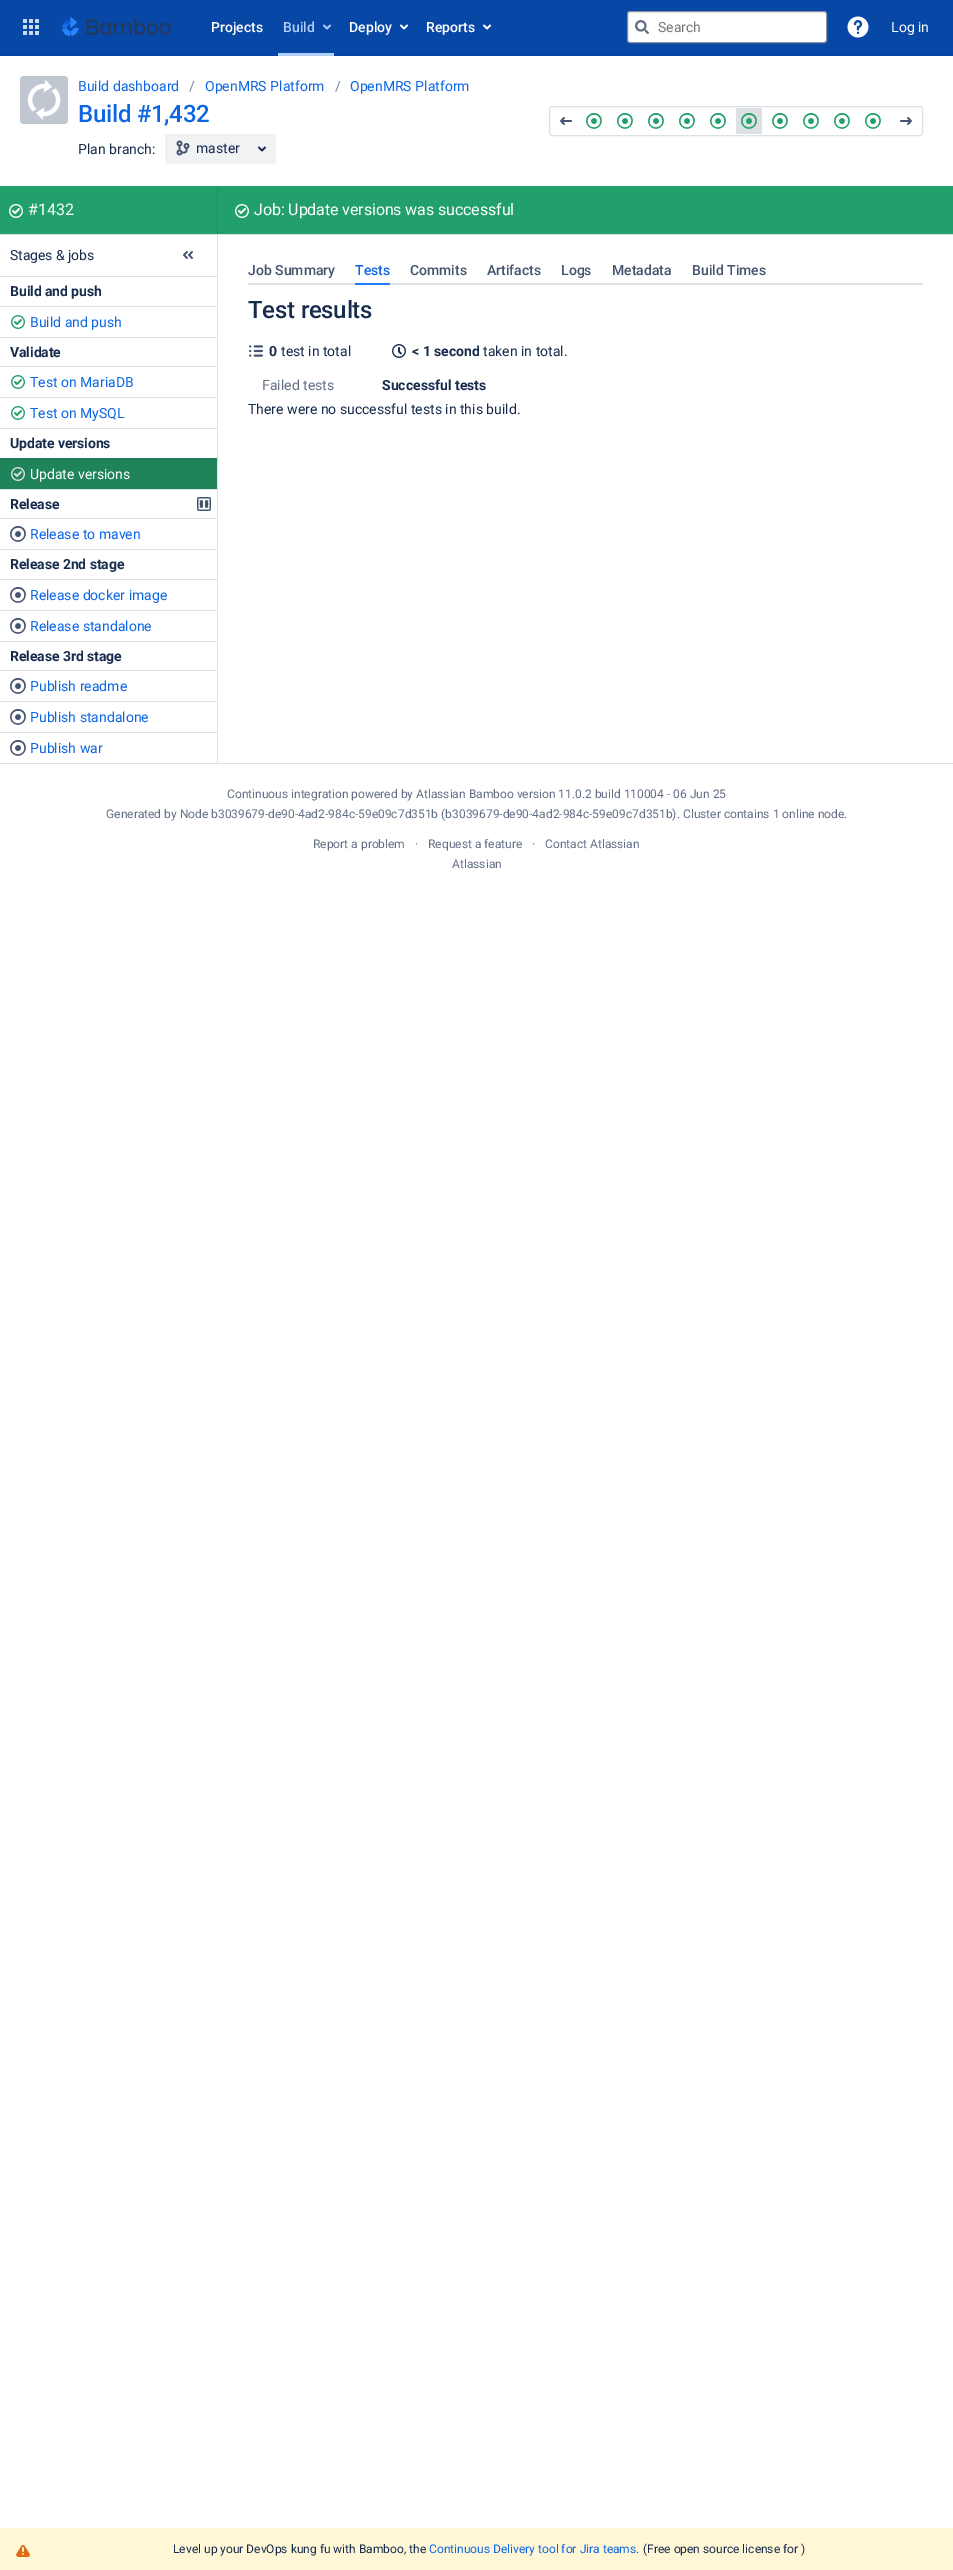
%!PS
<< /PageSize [953 2570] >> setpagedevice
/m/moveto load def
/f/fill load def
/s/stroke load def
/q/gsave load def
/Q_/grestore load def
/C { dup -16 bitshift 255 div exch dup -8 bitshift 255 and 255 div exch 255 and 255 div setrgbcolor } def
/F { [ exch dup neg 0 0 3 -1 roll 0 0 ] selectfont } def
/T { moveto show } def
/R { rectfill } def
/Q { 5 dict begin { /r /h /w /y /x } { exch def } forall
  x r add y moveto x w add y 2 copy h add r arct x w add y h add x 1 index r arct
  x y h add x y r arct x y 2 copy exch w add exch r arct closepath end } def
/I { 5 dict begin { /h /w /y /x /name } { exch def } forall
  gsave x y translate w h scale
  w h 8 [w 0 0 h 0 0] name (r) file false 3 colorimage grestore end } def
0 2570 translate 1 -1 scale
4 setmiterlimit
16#FFFFFF C
0 0 953 2570 R
16#0747A6 C
0 0 953 55 R
16#074198 C
0 55 953 1 R
(1.rgb) 23 19 16 16 I
(2.rgb) 62 17 109 19 I
/Roboto-Medium 14 F
16#FFFFFF C
(Projects) 211 32 T
16#B0CFFC C
(Build) 283 32 T
(3.rgb) 323 24 8 6 I
278 53 56 3 R
16#FFFFFF C
(Deploy) 349 32 T
(4.rgb) 400 24 8 6 I
(Reports) 426 32 T
(4.rgb) 483 24 8 6 I
627.5 11.5 199 31 2.5 Q q f Q_
16#8590A2 C
s
(5.rgb) 635 20 14 14 I
/Roboto-Regular 14 F
16#757575 C
(Search) 658 32 T
(6.rgb) 847 16 22 22 I
16#FFFFFF C
(Log in) 891 32 T
(7.rgb) 20 76 48 48 I
16#0C66E4 C
(Build dashboard) 78 91 T
16#758195 C
(/) 189 91 T
16#0C66E4 C
(OpenMRS Platform) 205 91 T
16#758195 C
(/) 335 91 T
16#0C66E4 C
(OpenMRS Platform) 350 91 T
/Roboto-Medium 24 F
78 122 m -.25 0 (Build #1,432) ashow
/Roboto-Regular 14 F
16#172B4D C
(Plan branch:) 78 154 T
16#F0F2F4 C
165 134 111 30 3 Q f
(8.rgb) 176 140 14 16 I
16#172B4D C
(master) 196 153 T
(9.rgb) 258 146 8 6 I
16#DDE0E5 C
549.5 106.5 373 29 2.5 Q s
(10.rgb) 560 117 12 8 I
(11.rgb) 586 113 16 16 I
(11.rgb) 617 113 16 16 I
(11.rgb) 648 113 16 16 I
(11.rgb) 679 113 16 16 I
(11.rgb) 710 113 16 16 I
16#DCDFE4 C
736 108 26 26 R
(12.rgb) 741 113 16 16 I
(11.rgb) 772 113 16 16 I
(11.rgb) 803 113 16 16 I
(11.rgb) 834 113 16 16 I
(11.rgb) 865 113 16 16 I
(13.rgb) 900 117 12 8 I
16#22A06B C
0 186 217 48 R
(14.rgb) 9 204 14 14 I
/Roboto-Regular 16 F
16#FFFFFF C
(#1432) 28 215 T
16#22A06B C
218 186 735 48 R
16#1F8E65 C
217 186 1 48 R
(14.rgb) 235 204 14 14 I
16#FFFFFF C
254 215 m -.1 0 (Job: Update versions was successful) ashow
16#DDE0E5 C
0 234 953 1 R
0 763 953 1 R
217 235 1 528 R
/Roboto-Regular 14 F
16#172B4D C
10 260 m -.1 0 (Stages & jobs) ashow
16#DDE0E5 C
0 276 217 1 R
/Roboto-Bold 14 F
16#172B4D C
10 296 m -.1 0 (Build and push) ashow
16#DDE0E5 C
0 306 217 1 R
(15.rgb) 11 315 14 14 I
/Roboto-Regular 14 F
16#0C66E4 C
(Build and push) 30 327 T
16#DDE0E5 C
0 337 217 1 R
/Roboto-Bold 14 F
16#172B4D C
10 357 m -.1 0 (Validate) ashow
16#DDE0E5 C
0 366 217 1 R
(15.rgb) 11 375 14 14 I
/Roboto-Regular 14 F
16#0C66E4 C
(Test on MariaDB) 30 387 T
16#DDE0E5 C
0 397 217 1 R
(15.rgb) 11 406 14 14 I
16#0C66E4 C
(Test on MySQL) 30 418 T
16#DDE0E5 C
0 428 217 1 R
/Roboto-Bold 14 F
16#172B4D C
10 448 m -.1 0 (Update versions) ashow
16#1F845A C
0 459 217 30 R
16#1C7657 C
0 458 217 1 R
(16.rgb) 11 467 14 14 I
/Roboto-Regular 14 F
16#FFFFFF C
(Update versions) 30 479 T
16#DDE0E5 C
0 489 217 1 R
/Roboto-Bold 14 F
16#172B4D C
10 509 m -.1 0 (Release) ashow
(17.rgb) 197 497 14 14 I
16#DDE0E5 C
0 518 217 1 R
(18.rgb) 10 526 16 16 I
/Roboto-Regular 14 F
16#0C66E4 C
(Release to maven) 30 539 T
16#DDE0E5 C
0 549 217 1 R
/Roboto-Bold 14 F
16#172B4D C
10 569 m -.1 0 (Release 2nd stage) ashow
16#DDE0E5 C
0 579 217 1 R
(18.rgb) 10 587 16 16 I
/Roboto-Regular 14 F
16#0C66E4 C
(Release docker image) 30 600 T
16#DDE0E5 C
0 610 217 1 R
(18.rgb) 10 618 16 16 I
16#0C66E4 C
(Release standalone) 30 631 T
16#DDE0E5 C
0 641 217 1 R
/Roboto-Bold 14 F
16#172B4D C
10 661 m -.1 0 (Release 3rd stage) ashow
16#DDE0E5 C
0 670 217 1 R
(18.rgb) 10 678 16 16 I
/Roboto-Regular 14 F
16#0C66E4 C
(Publish readme) 30 691 T
16#DDE0E5 C
0 701 217 1 R
(18.rgb) 10 709 16 16 I
16#0C66E4 C
(Publish standalone) 30 722 T
16#DDE0E5 C
0 732 217 1 R
(18.rgb) 10 740 16 16 I
16#0C66E4 C
(Publish war) 30 753 T
(19.rgb) 183 251 10 8 I
/Roboto-Medium 14 F
16#44546F C
(Job Summary) 248 275 T
16#0C66E4 C
(Tests) 355 275 T
16#DDE0E5 C
248 283 675 2 R
16#1D7AFC C
355 283 35 2 R
16#44546F C
(Commits) 410 275 T
(Artifacts) 487 275 T
(Logs) 561 275 T
(Metadata) 612 275 T
(Build Times) 692 275 T
/Roboto-Medium 24 F
16#172B4D C
248 318 m -.25 0 (Test results) ashow
(20.rgb) 249 345 14 12 I
/Roboto-Bold 14 F
(0) 269 356 T
/Roboto-Regular 14 F
(test in total) 281 356 T
(21.rgb) 392 344 14 14 I
/Roboto-Bold 14 F
(< 1 second) 412 356 T
/Roboto-Regular 14 F
(taken in total.) 483 356 T
16#626F86 C
(Failed tests) 262 390 T
/Roboto-Bold 14 F
16#172B4D C
(Successful tests) 382 390 T
/Roboto-Regular 14 F
(There were no successful tests in this build.) 248 414 T
/Roboto-Regular 12 F
16#626F86 C
(Continuous integration powered by Atlassian Bamboo version 11.0.2 build 110004 - 06 Jun 25) 227 798 T
(Generated by Node b3039679-de90-4ad2-984c-59e09c7d351b \(b3039679-de90-4ad2-984c-59e09c7d351b\). Cluster contains 1 online node.) 106 818 T
(Report a problem) 313 848 T
(·) 415 848 T
(Request a feature) 428 848 T
(·) 532 848 T
(Contact Atlassian) 545 848 T
(Atlassian) 452 868 T
16#FFF7D6 C
0 2528 953 42 R
(22.rgb) 16 2545 14 12 I
16#172B4D C
(Level up your DevOps kung fu with Bamboo, the) 173 2553 T
16#0C66E4 C
(Continuous Delivery tool for Jira teams.) 429 2553 T
16#172B4D C
(\(Free open source license for \)) 643 2553 T
showpage
